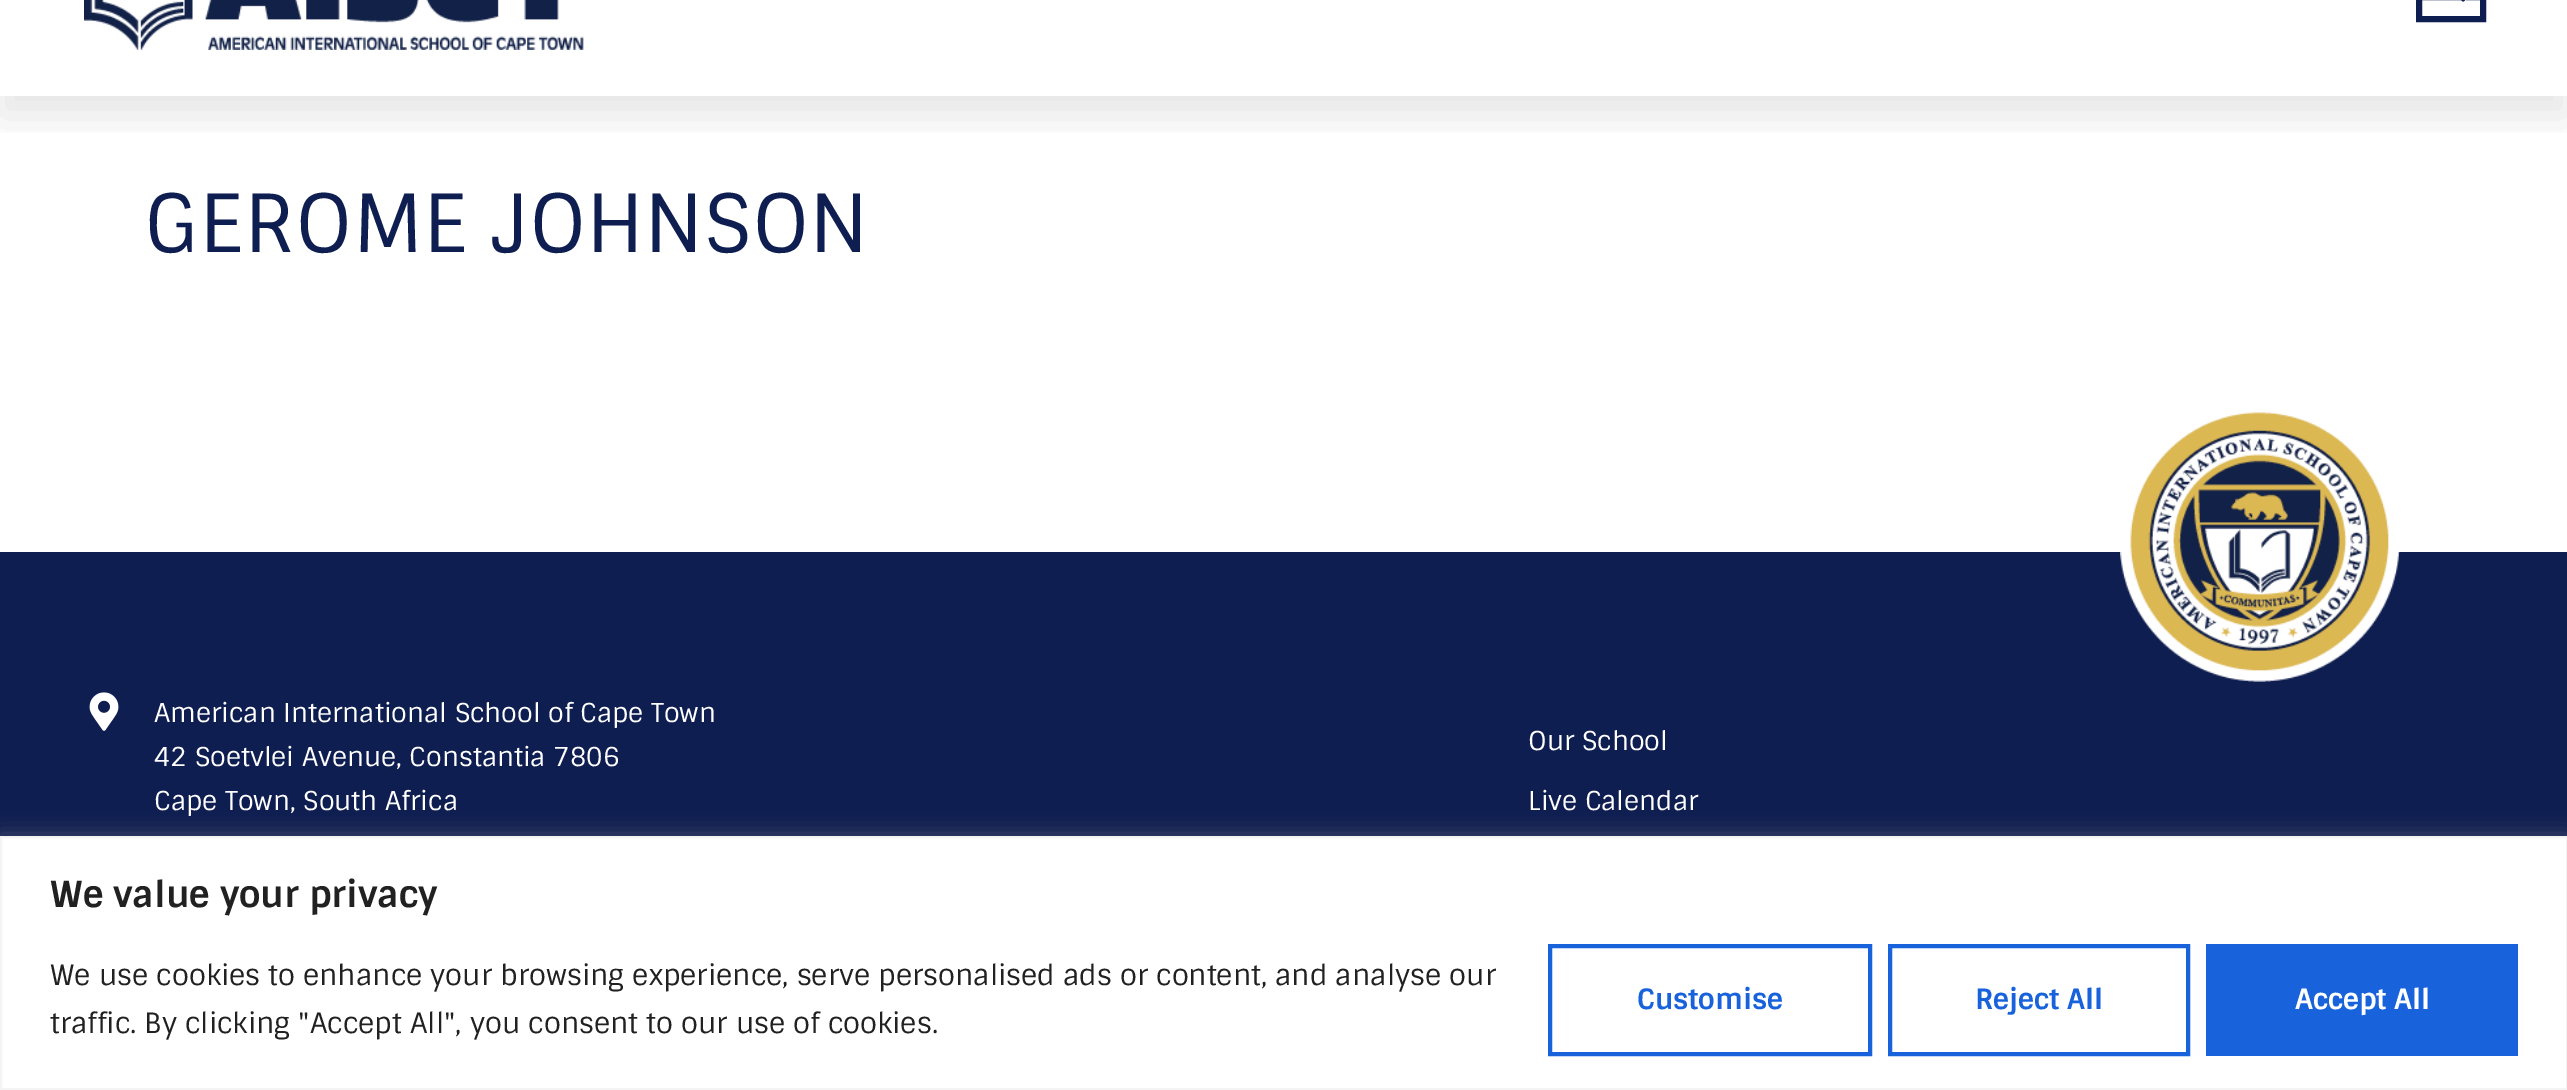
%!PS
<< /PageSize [2567 1090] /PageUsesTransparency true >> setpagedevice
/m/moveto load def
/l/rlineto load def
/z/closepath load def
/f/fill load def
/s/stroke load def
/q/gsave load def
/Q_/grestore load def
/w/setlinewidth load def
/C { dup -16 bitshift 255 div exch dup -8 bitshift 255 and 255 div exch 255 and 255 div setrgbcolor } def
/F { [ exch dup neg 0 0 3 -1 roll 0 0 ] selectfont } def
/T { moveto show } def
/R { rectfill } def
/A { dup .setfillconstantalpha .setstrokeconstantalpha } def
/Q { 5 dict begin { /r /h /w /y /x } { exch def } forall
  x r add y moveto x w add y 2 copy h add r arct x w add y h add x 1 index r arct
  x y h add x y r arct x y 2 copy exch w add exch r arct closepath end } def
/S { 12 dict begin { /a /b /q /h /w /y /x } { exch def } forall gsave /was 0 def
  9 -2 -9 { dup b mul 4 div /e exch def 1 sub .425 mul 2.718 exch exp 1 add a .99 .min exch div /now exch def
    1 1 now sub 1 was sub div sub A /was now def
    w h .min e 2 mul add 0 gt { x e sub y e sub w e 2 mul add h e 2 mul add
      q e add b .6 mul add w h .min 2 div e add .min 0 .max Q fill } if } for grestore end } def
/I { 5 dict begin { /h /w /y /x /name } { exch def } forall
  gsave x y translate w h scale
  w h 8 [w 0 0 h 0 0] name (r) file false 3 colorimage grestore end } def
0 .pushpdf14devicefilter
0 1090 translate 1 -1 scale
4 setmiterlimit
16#FFFFFF C
0 0 2567 1090 R
q
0 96 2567 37 rectclip
16#000000 C
0 -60 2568 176 0 20 .1 S
Q_
(1.rgb) 84 0 500 50 I
16#0F1E50 C
6 w
2419 -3 64 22 rectstroke
(2.rgb) 2461 0 5 2 I
/Sintony-Regular 80 F
(GEROME JOHNSON) 144 252 T
0 552 2567 284 R
(3.rgb) 2120 412 280 270 I
(4.rgb) 89 692 30 39 I
/Sintony-Regular 26 F
16#FFFFFF C
(American International School of Cape Town) 154 722 T
(42 Soetvlei Avenue, Constantia 7806) 154 766 T
(Cape Town, South Africa) 154 810 T
(Our School) 1528 750 T
(Live Calendar) 1528 810 T
16#ACABAB C
0 834 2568 254 0 10 .3 S
16#FFFFFF C
1 837 m 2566 0 l 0 252 l -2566 0 l z q f Q_
16#F4F4F4 C
2 w
s
/Sintony-Bold 36 F
16#212121 C
(We value your privacy) 50 907 T
/Sintony-Regular 28 F
(We use cookies to enhance your browsing experience, serve personalised ads or content, and analyse our) 50 985 T
(traffic. By clicking "Accept All", you consent to our use of cookies.) 50 1033 T
16#1863DC C
4 w
1550 946 320 108 rectstroke
/Sintony-Bold 28 F
(Customise) 1637 1009 T
1890 946 298 108 rectstroke
(Reject All) 1975 1009 T
2206 944 312 112 R
16#FFFFFF C
(Accept All) 2295 1009 T
.poppdf14devicefilter showpage
